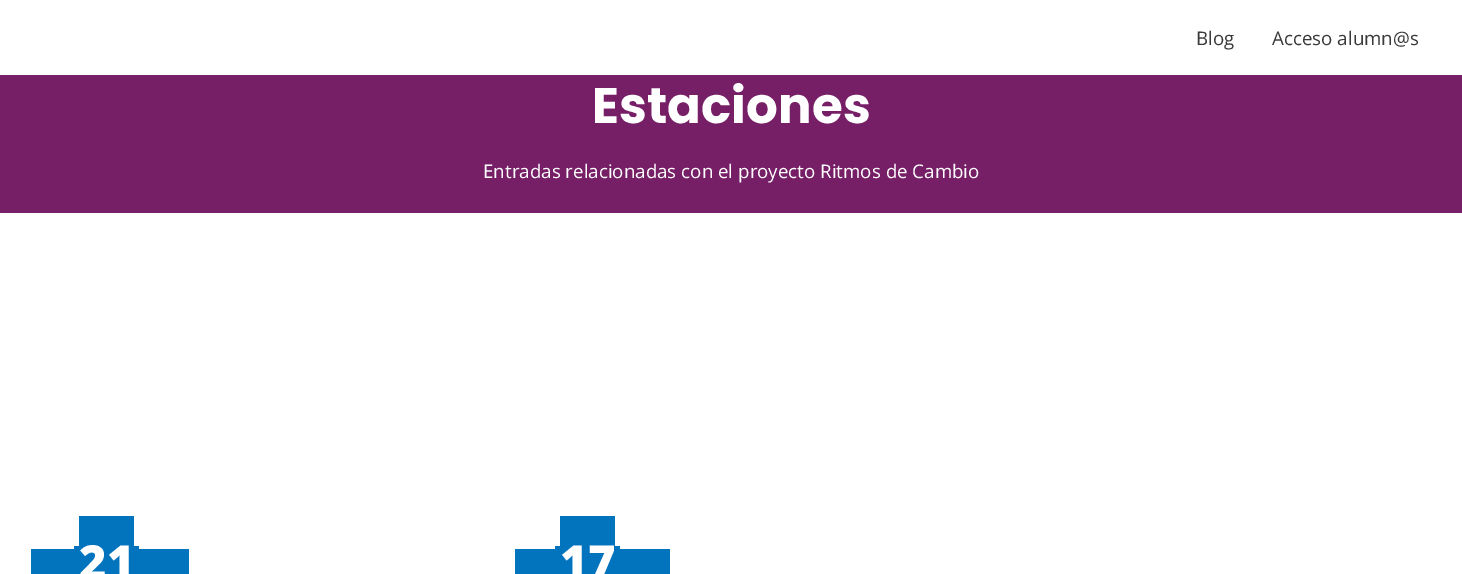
%!PS
<< /PageSize [1462 574] >> setpagedevice
/C { dup -16 bitshift 255 div exch dup -8 bitshift 255 and 255 div exch 255 and 255 div setrgbcolor } def
/F { [ exch dup neg 0 0 3 -1 roll 0 0 ] selectfont } def
/T { moveto show } def
/R { rectfill } def
0 574 translate 1 -1 scale
4 setmiterlimit
16#FFFFFF C
0 0 1462 574 R
/OpenSans-Regular 18.75 F
16#3A3A3A C
(Blog) 1196 45 T
(Acceso alumn@s) 1272 45 T
16#761E66 C
0 75 1462 138 R
/Poppins-Bold 50 F
16#FFFFFF C
(Estaciones) 592 123 T
/OpenSans-Regular 18.75 F
(Entradas relacionadas con el proyecto Ritmos de Cambio) 483 178 T
16#0274BE C
79 516 55 58 R
/OpenSans-ExtraBold 47 F
16#FFFFFF C
(21) 79 579 T
16#0274BE C
31 549 43 25 R
74 546 5 28 R
134 546 5 28 R
139 549 50 25 R
560 516 55 58 R
16#FFFFFF C
(17) 560 579 T
16#0274BE C
515 549 40 25 R
555 546 5 28 R
615 546 5 28 R
620 549 50 25 R
showpage
